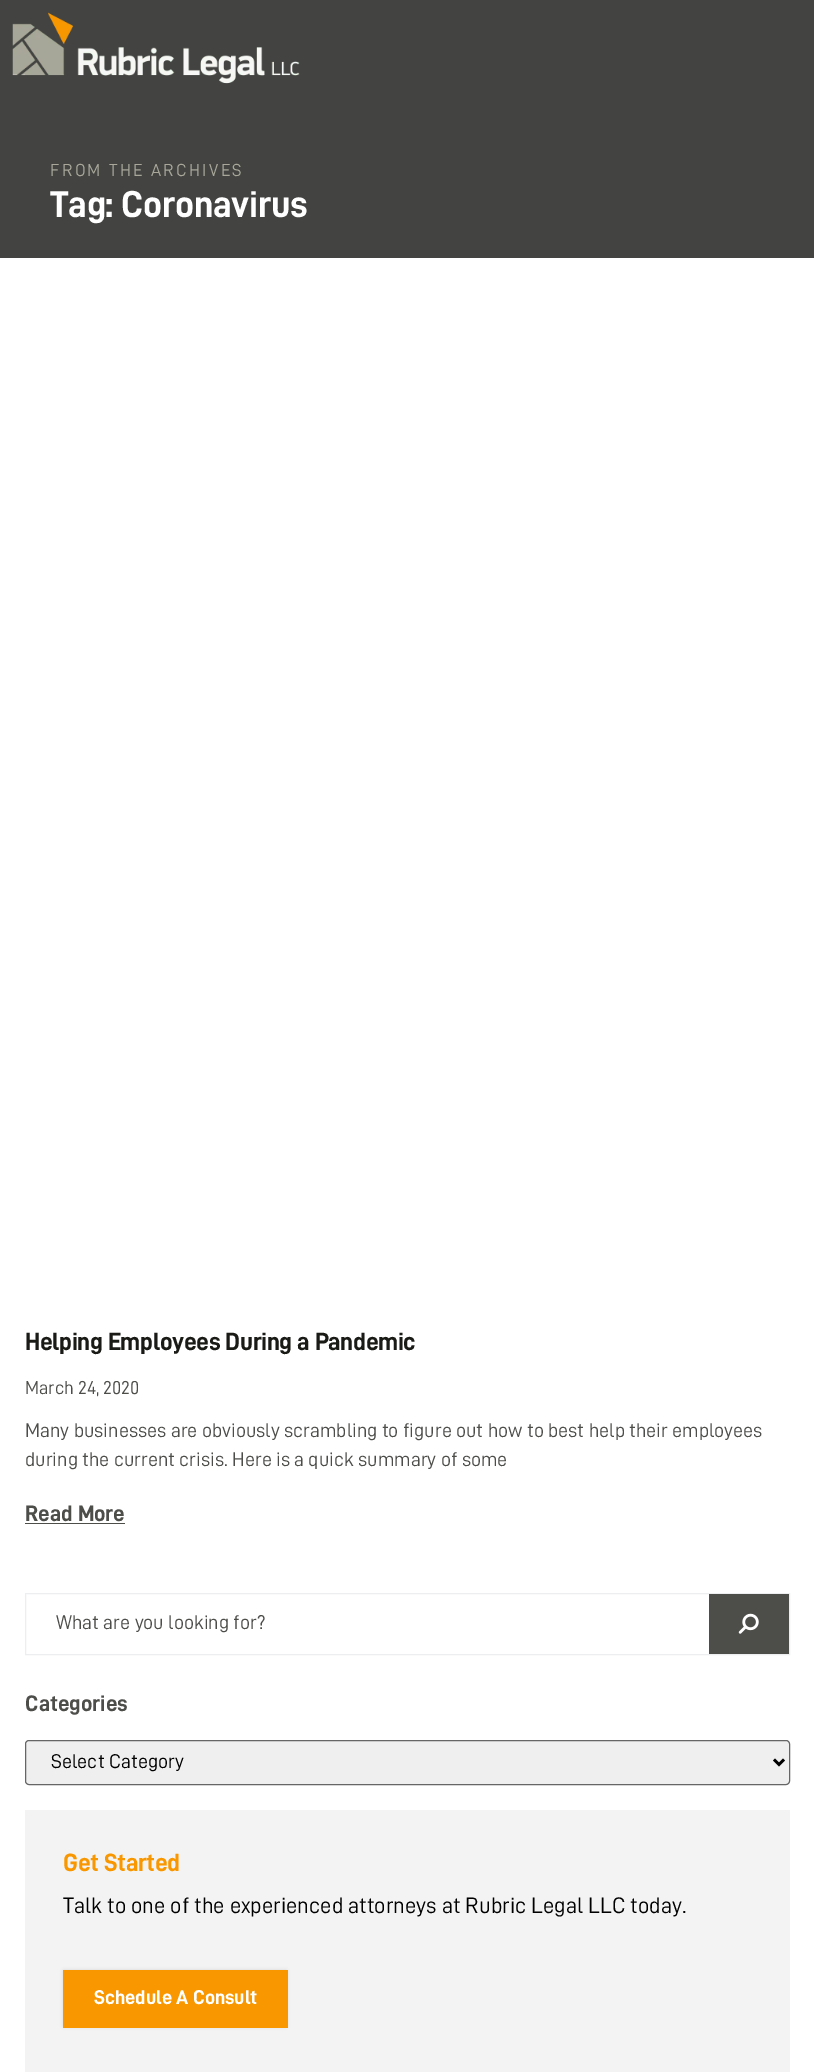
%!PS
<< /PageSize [814 2072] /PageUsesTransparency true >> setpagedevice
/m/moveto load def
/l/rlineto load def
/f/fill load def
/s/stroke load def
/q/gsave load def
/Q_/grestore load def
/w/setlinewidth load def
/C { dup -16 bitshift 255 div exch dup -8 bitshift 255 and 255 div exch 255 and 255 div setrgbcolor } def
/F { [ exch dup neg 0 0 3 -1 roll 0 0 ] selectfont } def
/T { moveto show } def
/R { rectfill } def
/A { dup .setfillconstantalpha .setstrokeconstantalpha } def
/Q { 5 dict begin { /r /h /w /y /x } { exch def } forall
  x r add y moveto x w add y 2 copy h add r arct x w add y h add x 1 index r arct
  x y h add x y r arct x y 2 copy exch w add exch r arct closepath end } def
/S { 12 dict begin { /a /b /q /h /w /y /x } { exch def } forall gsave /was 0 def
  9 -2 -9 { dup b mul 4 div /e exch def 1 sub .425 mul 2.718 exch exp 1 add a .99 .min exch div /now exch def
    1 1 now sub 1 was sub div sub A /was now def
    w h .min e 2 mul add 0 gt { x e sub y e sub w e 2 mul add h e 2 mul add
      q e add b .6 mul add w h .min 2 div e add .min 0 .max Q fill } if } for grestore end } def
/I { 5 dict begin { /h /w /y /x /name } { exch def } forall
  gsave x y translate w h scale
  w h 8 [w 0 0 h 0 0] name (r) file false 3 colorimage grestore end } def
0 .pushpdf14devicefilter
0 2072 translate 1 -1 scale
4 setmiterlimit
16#FFFFFF C
0 0 814 2072 R
16#434341 C
0 0 814 258 R
(1.rgb) 12 12 288 72 I
/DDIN-Regular 17.5 F
16#A8A79A C
50 176 m 2.3 0 (FROM THE ARCHIVES) ashow
/DDIN-Bold 37.5 F
16#FFFFFF C
50 217 m -.4 0 (Tag: Coronavirus) ashow
/DDIN-Bold 25 F
16#1A1A17 C
25 1350 m -.4 0 (Helping Employees During a Pandemic) ashow
/DDIN-Regular 18.75 F
16#4D4D49 C
(March 24, 2020) 25 1394 T
/DDIN-Regular 20 F
(Many businesses are obviously scrambling to figure out how to best help their employees) 25 1437 T
(during the current crisis. Here is a quick summary of some) 25 1466 T
/DDIN-Bold 22.5 F
25 1521 m -.1 0 (Read More) ashow
25 1523 100 1 R
16#ECEEEF C
25.5 1593.5 764 61 rectstroke
/DDIN-Regular 20 F
16#4D4D49 C
(What are you looking for?) 56 1629 T
709 1594 80 60 R
(2.rgb) 738 1613 21 21 I
/DDIN-Bold 22.5 F
(Categories) 25 1711 T
16#EFEFEF C
25.5 1740.5 764 44 3.5 Q q f Q_
16#666666 C
s
16#000000 C
2.5 w
774 1759.5 m 5 5 l 5 -5 l s
/DDIN-Regular 20 F
(Select Category) 51 1768 T
16#F3F3F3 C
25 1810 765 262 R
/DDIN-Bold 25 F
16#F89700 C
63 1871 m -.4 0 (Get Started) ashow
/DDIN-Regular 22.5 F
16#000000 C
(Talk to one of the experienced attorneys at Rubric Legal LLC today.) 63 1913 T
64 1971 222 55 0 2 .2 S
16#F89700 C
63 1970 225 58 R
/DDIN-Bold 20 F
16#FFFFFF C
94 2004 m -.1 0 (Schedule A Consult) ashow
.poppdf14devicefilter showpage
